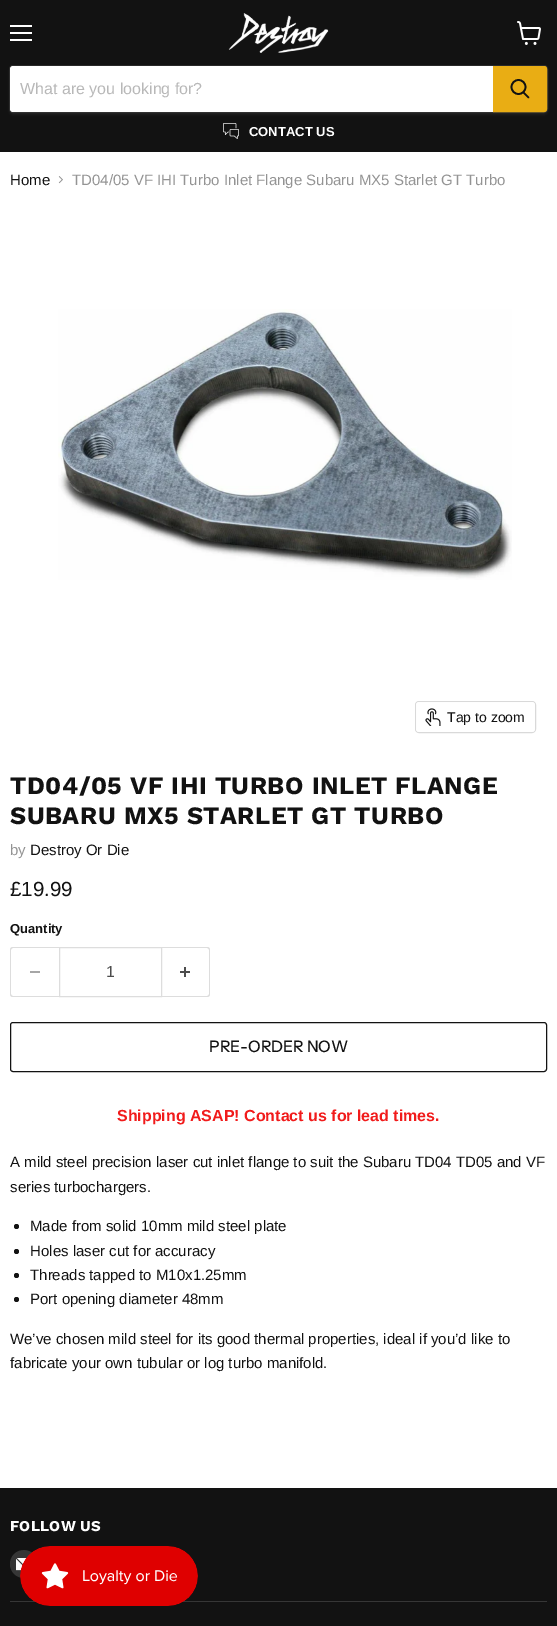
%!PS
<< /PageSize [557 1626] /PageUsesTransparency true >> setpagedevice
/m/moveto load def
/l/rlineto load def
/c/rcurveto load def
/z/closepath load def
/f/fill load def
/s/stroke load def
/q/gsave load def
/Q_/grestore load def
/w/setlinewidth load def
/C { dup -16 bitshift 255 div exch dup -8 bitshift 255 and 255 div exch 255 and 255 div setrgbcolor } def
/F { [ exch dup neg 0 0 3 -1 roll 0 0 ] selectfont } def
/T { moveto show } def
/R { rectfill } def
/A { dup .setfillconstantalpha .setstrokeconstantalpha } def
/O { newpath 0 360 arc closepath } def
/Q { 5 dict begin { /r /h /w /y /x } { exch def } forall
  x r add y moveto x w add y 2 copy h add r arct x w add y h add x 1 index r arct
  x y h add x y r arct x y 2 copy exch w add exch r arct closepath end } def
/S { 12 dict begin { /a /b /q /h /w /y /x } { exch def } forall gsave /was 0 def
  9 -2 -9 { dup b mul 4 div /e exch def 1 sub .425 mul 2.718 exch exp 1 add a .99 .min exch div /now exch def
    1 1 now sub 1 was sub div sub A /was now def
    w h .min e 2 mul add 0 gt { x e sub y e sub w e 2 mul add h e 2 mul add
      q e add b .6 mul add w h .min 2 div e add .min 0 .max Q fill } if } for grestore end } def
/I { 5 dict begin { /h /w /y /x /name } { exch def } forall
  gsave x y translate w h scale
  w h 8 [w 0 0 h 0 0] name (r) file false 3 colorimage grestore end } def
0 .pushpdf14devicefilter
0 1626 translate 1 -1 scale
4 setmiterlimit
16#FFFFFF C
0 0 557 1626 R
16#121212 C
0 0 557 152 R
16#FFFFFF C
10 25 22 2 R
10 32 22 2 R
10 39 22 2 R
(1.rgb) 517 21 24 24 I
(2.rgb) 228 13 101 40 I
16#808080 C
9 67 539 48 4 1.5 .11 S
0.2 A
9.5 65.5 538 47 3.5 Q s
1 A
16#FFFFFF C
13 66 m 480 0 l 0 46 l -480 0 l -1.5 0 -3 -1.5 -3 -3 c 0 -40 l 0 -1.5 1.5 -3 3 -3 c z f
/LiberationSans-Regular 16 F
16#B8B8B8 C
(What are you looking for?) 20 94 T
16#E9AD14 C
493.5 66.5 m 50.5 0 l 1.5 0 2.5 1 2.5 2.5 c 0 40 l 0 1.5 -1 2.5 -2.5 2.5 c -50.5 0 l z q f Q_
s
16#121212 C
1.7 w
1 setlinecap
528.5 97.5 m -5 -5 l s
0 setlinecap
518.5 87 7 O s
(3.rgb) 223 123 16 16 I
/LiberationSans-Bold 13 F
16#FFFFFF C
(CONTACT US) 249 136 T
/LiberationSans-Regular 15 F
16#121212 C
(Home) 10 185 T
(4.rgb) 58 176 5 8 I
16#949494 C
(TD04/05 VF IHI Turbo Inlet Flange Subaru MX5 Starlet GT Turbo) 72 185 T
(5.rgb) 58 309 454 271 I
16#D9D9D9 C
1 w
415.5 701.5 120 31 3.5 Q s
0.9 A
16#FFFFFF C
416 702 119 30 3 Q f
1 A
(6.rgb) 425 708 16 18 I
/LiberationSans-Regular 14 F
16#121212 C
(Tap to zoom) 447 722 T
/WorkSans-Bold 25 F
10 794 m .5 0 (TD04/05 VF IHI TURBO INLET FLANGE) ashow
10 824 m .5 0 (SUBARU MX5 STARLET GT TURBO) ashow
/LiberationSans-Regular 15 F
16#949494 C
(by) 10 855 T
16#121212 C
(Destroy Or Die) 30 855 T
/LiberationSans-Regular 20.5 F
(£19.99) 10 896 T
/LiberationSans-Bold 13 F
(Quantity) 10 933 T
16#DDDDDD C
13 947 m 46 0 l 0 50 l -46 0 l -2 0 -3 -1 -3 -3 c 0 -44 l 0 -2 1 -3 3 -3 c z 13 948 m 46 0 l 0 48 l -46 0 l -1 0 -2 -1 -2 -2 c 0 -44 l 0 -1 1 -2 2 -2 c z eofill
16#A6A6A6 C
30 971 10 2 R
16#DDDDDD C
59.5 947.5 102 49 rectstroke
/LiberationSans-Regular 15.9 F
16#4D4D4D C
(1) 106 977 T
16#DDDDDD C
162 947 m 45 0 l 2 0 3 1 3 3 c 0 44 l 0 2 -1 3 -3 3 c -45 0 l z 162 948 m 45 0 l 1 0 2 1 2 2 c 0 44 l 0 1 -1 2 -2 2 c -45 0 l z eofill
(7.rgb) 180 967 10 10 I
16#121212 C
10.5 1022.5 536 49 2.5 Q s
/InstrumentSans-Medium 15.9 F
(PRE-ORDER NOW) 209 1052 T
/LiberationSans-Bold 16 F
16#F11B1B C
(Shipping ASAP! Contact us for lead times.) 117 1121 T
/LiberationSans-Regular 15 F
16#121212 C
(A mild steel precision laser cut inlet flange to suit the Subaru TD04 TD05 and VF) 10 1167 T
(series turbochargers.) 10 1192 T
16.5 1226.5 2.5 O f
(Made from solid 10mm mild steel plate) 30 1231 T
16.5 1251.5 2.5 O f
(Holes laser cut for accuracy) 30 1256 T
16.5 1275.5 2.5 O f
(Threads tapped to M10x1.25mm) 30 1280 T
16.5 1299.5 2.5 O f
(Port opening diameter 48mm) 30 1304 T
(We’ve chosen mild steel for its good thermal properties, ideal if you’d like to) 10 1344 T
(fabricate your own tubular or log turbo manifold.) 10 1368 T
0 1488 557 138 R
16#363636 C
10 1601 537 1 R
/WorkSans-Bold 15 F
16#FFFFFF C
10 1531 m .25 0 (FOLLOW US) ashow
16#363636 C
24 1564 14 O f
(8.rgb) 16 1558 11 13 I
(9.rgb) 20 1546 178 60 I
.poppdf14devicefilter showpage
